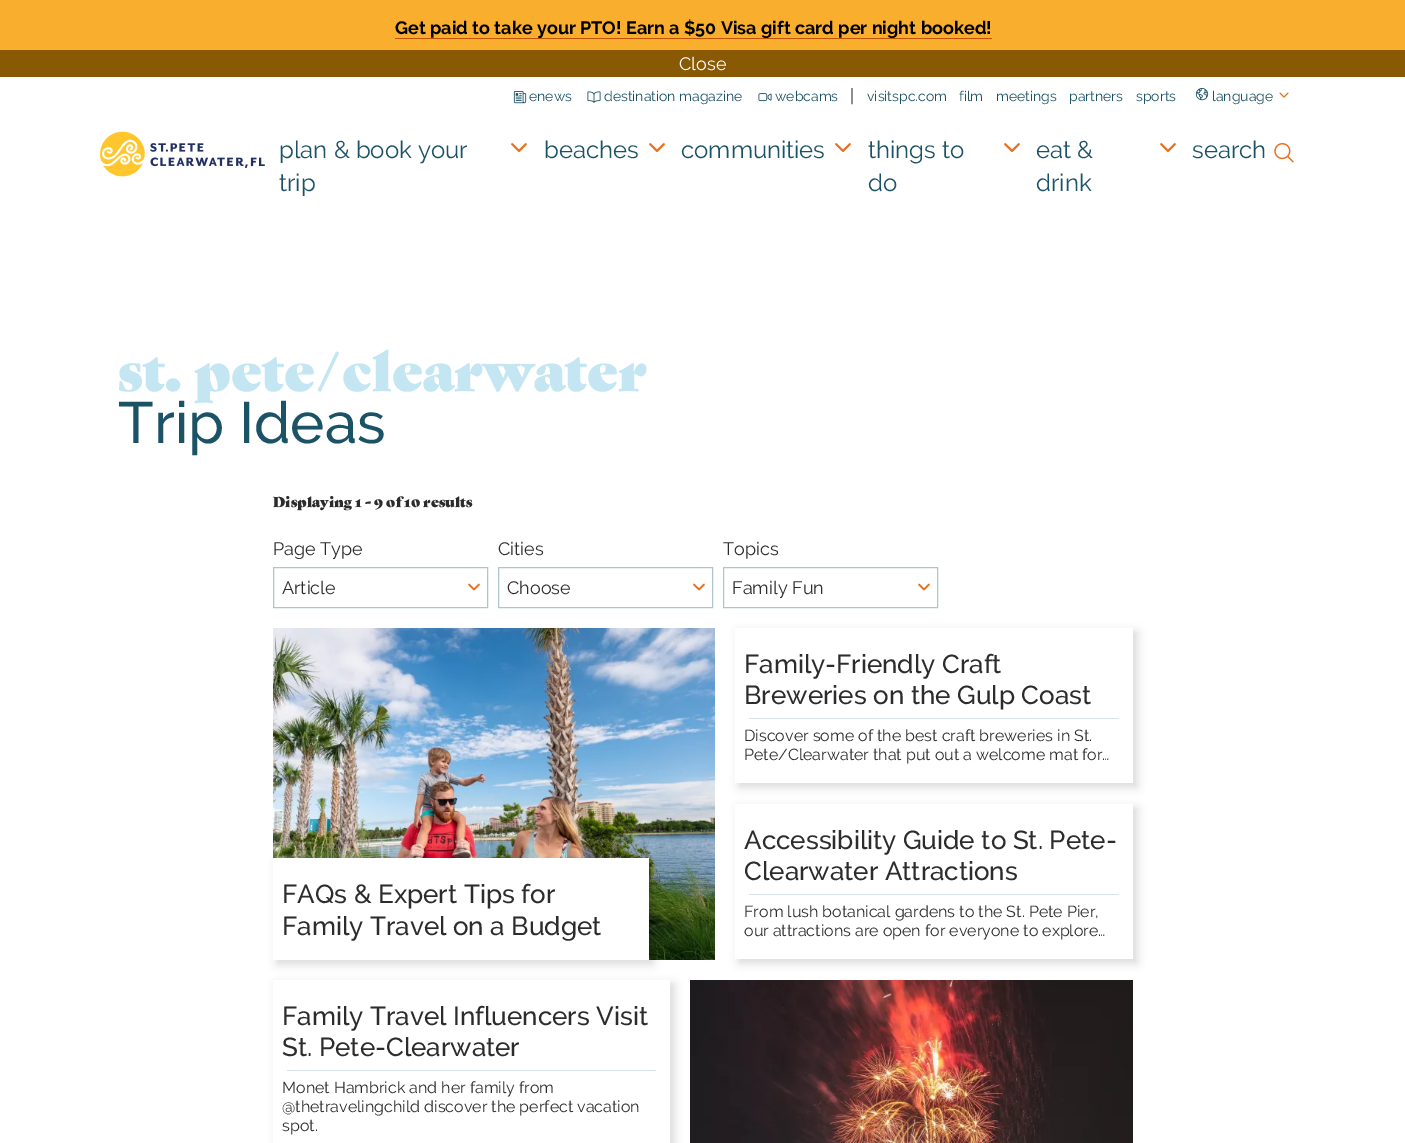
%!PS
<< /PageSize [1405 1143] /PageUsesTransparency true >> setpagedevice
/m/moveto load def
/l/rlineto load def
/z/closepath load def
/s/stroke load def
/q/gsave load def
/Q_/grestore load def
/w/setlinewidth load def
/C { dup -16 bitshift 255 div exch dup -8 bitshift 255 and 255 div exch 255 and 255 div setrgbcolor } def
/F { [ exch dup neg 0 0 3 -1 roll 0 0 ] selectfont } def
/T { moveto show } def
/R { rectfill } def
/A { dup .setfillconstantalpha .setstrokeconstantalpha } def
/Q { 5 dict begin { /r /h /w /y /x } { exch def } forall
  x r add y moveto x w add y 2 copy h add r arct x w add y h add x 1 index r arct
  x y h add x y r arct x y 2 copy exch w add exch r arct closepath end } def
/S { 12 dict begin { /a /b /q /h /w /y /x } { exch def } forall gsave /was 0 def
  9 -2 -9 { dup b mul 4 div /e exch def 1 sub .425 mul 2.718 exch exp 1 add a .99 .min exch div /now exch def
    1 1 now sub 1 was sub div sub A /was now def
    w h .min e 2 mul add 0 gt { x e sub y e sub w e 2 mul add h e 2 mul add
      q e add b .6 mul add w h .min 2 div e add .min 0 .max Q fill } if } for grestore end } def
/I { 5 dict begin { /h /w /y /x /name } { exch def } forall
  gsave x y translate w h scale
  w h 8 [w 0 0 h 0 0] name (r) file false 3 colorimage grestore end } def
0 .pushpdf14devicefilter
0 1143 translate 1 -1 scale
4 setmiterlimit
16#FFFFFF C
0 0 1405 1143 R
16#F9AE2E C
0 0 1405 50 R
16#C25100 C
395 38 597 1 R
/Raleway-Bold 18 F
16#000000 C
(Get paid to take your PTO! Earn a $50 Visa gift card per night booked!) 395 34 T
16#8A5904 C
0 50 1405 27 R
/Raleway-Regular 18 F
16#FFFFFF C
(Close) 679 70 T
(1.rgb) 100 131 165 46 I
(2.rgb) 513 91 14 13 I
/Raleway-Regular 14 F
16#1B5266 C
(enews) 529 101 T
(3.rgb) 587 91 14 12 I
(destination magazine) 604 101 T
(4.rgb) 758 93 14 9 I
(webcams) 775 101 T
/Raleway-Regular 18 F
16#2C2C2C C
(|) 850 102 T
/Raleway-Regular 14 F
16#1B5266 C
(visitspc.com) 867 101 T
(film) 959 101 T
(meetings) 996 101 T
(partners) 1069 101 T
(sports) 1136 101 T
(5.rgb) 1195 88 14 13 I
(language) 1212 101 T
(6.rgb) 1279 92 10 6 I
/Raleway-Regular 24 F
(plan & book your) 279 158 T
(7.rgb) 511 143 16 9 I
(trip) 279 191 T
(beaches) 544 158 T
(7.rgb) 649 143 16 9 I
(communities) 681 158 T
(7.rgb) 835 143 16 9 I
(things to) 868 158 T
(7.rgb) 1004 143 16 9 I
(do) 868 191 T
(eat &) 1036 158 T
(7.rgb) 1160 143 16 9 I
(drink) 1036 191 T
(search) 1192 158 T
(8.rgb) 1274 143 20 20 I
/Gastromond-Regular 54 F
16#C3E6F2 C
(st. pete/clearwater) 118 391 T
/Raleway-Medium 58 F
16#1B5266 C
(Trip Ideas) 118 443 T
/Gastromond-Regular 14 F
16#2C2C2C C
(Displaying 1 - 9 of 10 results) 273 507 T
/Raleway-Regular 18 F
(Page Type) 273 555 T
16#E6711E C
1.7 w
1 setlinecap
1 setlinejoin
469 584.5 m 5 5 l 5 -5 l s
16#ADC5CC C
1 w
0 setlinecap
0 setlinejoin
273.5 567.5 214 40 rectstroke
16#2C2C2C C
(Article) 282 594 T
(Cities) 498 555 T
16#E6711E C
1.7 w
1 setlinecap
1 setlinejoin
694 584.5 m 5 5 l 5 -5 l s
16#ADC5CC C
1 w
0 setlinecap
0 setlinejoin
498.5 567.5 214 40 rectstroke
16#2C2C2C C
(Choose) 507 594 T
(Topics) 723 555 T
16#E6711E C
1.7 w
1 setlinecap
1 setlinejoin
919 584.5 m 5 5 l 5 -5 l s
16#ADC5CC C
1 w
0 setlinecap
0 setlinejoin
723.5 567.5 214 40 rectstroke
16#2C2C2C C
(Family Fun) 732 594 T
q
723 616 m 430 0 l 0 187 l -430 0 l z 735 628 m 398 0 l 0 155 l -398 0 l z eoclip newpath
16#000000 C
739 632 398 155 0 5 .15 S
Q_
/Raleway-Medium 26 F
(Family-Friendly Craft) 744 673 T
(Breweries on the Gulp Coast) 744 704 T
16#D6E2E6 C
749 718 370 1 R
/Raleway-Regular 16 F
16#2C2C2C C
(Discover some of the best craft breweries in St.) 744 741 T
(Pete/Clearwater that put out a welcome mat for…) 744 760 T
(9.rgb) 273 628 442 332 I
16#000000 C
277 862 376 102 0 5 .15 S
16#FFFFFF C
273 858 376 102 R
/Raleway-Medium 26 F
16#2C2C2C C
(FAQs & Expert Tips for) 282 903 T
(Family Travel on a Budget) 282 935 T
q
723 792 m 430 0 l 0 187 l -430 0 l z 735 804 m 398 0 l 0 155 l -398 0 l z eoclip newpath
16#000000 C
739 808 398 155 0 5 .15 S
Q_
(Accessibility Guide to St. Pete-) 744 849 T
(Clearwater Attractions) 744 880 T
16#D6E2E6 C
749 894 370 1 R
/Raleway-Regular 16 F
16#2C2C2C C
(From lush botanical gardens to the St. Pete Pier,) 744 917 T
(our attractions are open for everyone to explore…) 744 936 T
q
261 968 m 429 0 l 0 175 l -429 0 l z 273 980 m 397 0 l 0 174 l -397 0 l z eoclip newpath
16#000000 C
277 984 397 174 0 5 .15 S
Q_
/Raleway-Medium 26 F
(Family Travel Influencers Visit) 282 1025 T
(St. Pete-Clearwater) 282 1056 T
16#D6E2E6 C
287 1070 369 1 R
/Raleway-Regular 16 F
16#2C2C2C C
(Monet Hambrick and her family from) 282 1093 T
(@thetravelingchild discover the perfect vacation) 282 1112 T
(spot.) 282 1131 T
(10.rgb) 690 980 443 163 I
.poppdf14devicefilter showpage
